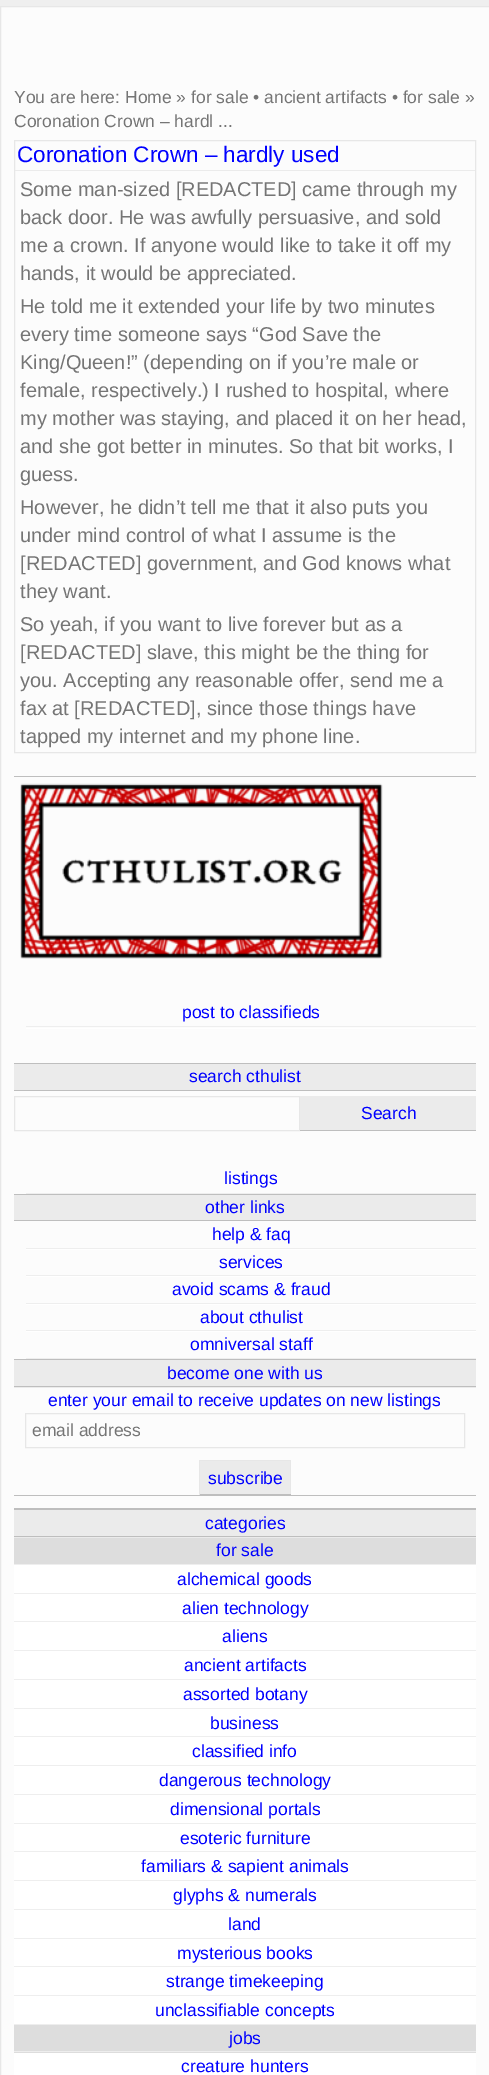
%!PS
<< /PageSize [489 2075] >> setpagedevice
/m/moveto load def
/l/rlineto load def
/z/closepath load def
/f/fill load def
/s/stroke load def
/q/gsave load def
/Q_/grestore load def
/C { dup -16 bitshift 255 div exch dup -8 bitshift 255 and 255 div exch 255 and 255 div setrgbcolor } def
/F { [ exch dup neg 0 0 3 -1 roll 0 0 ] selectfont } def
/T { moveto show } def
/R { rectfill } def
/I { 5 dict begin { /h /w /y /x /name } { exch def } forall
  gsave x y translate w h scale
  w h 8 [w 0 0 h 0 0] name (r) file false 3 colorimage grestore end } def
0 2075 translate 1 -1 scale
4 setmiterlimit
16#EFEFEF C
0 0 489 2075 R
16#FCFCFC C
.5 6.5 m 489 0 l 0 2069 l -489 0 l z q f Q_
16#E7E7E7 C
s
/LiberationSans-Regular 17.5 F
16#757575 C
(You are here: Home » for sale • ancient artifacts • for sale ») 14 103 T
(Coronation Crown – hardl ...) 14 127 T
16#E7E7E7 C
14.5 140.5 461 612 rectstroke
16#EBEBEB C
15 170 460 1 R
/LiberationSans-Regular 22.5 F
16#0000FF C
(Coronation Crown – hardly used) 17 162 T
/LiberationSans-Regular 20 F
16#757575 C
(Some man-sized [REDACTED] came through my) 20 196 T
(back door. He was awfully persuasive, and sold) 20 224 T
(me a crown. If anyone would like to take it off my) 20 252 T
(hands, it would be appreciated.) 20 280 T
(He told me it extended your life by two minutes) 20 313 T
(every time someone says “God Save the) 20 341 T
(King/Queen!” \(depending on if you’re male or) 20 369 T
(female, respectively.\) I rushed to hospital, where) 20 397 T
(my mother was staying, and placed it on her head,) 20 425 T
(and she got better in minutes. So that bit works, I) 20 453 T
(guess.) 20 481 T
(However, he didn’t tell me that it also puts you) 20 514 T
(under mind control of what I assume is the) 20 542 T
([REDACTED] government, and God knows what) 20 570 T
(they want.) 20 598 T
(So yeah, if you want to live forever but as a) 20 631 T
([REDACTED] slave, this might be the thing for) 20 659 T
(you. Accepting any reasonable offer, send me a) 20 687 T
(fax at [REDACTED], since those things have) 20 715 T
(tapped my internet and my phone line.) 20 743 T
16#BEBEBE C
14 776 462 1 R
14 1495 462 1 R
(1.rgb) 20 783 363 176 I
16#EEEEEE C
26 1026 450 1 R
/LiberationSans-Regular 17.5 F
16#0000FF C
(post to classifieds) 182 1018 T
16#FFFFFF C
26 1028 450 1 R
16#EBEBEB C
14 1064 462 26 R
16#BEBEBE C
14 1063 462 1 R
14 1090 462 1 R
16#0000FF C
(search cthulist) 189 1082 T
16#E7E7E7 C
14.5 1096.5 285 34 rectstroke
16#EBEBEB C
300 1096 176 34 R
16#BEBEBE C
300 1130 176 1 R
16#0000FF C
(Search) 361 1119 T
16#EEEEEE C
26 1193 450 1 R
16#0000FF C
(listings) 224 1184 T
16#EBEBEB C
14 1195 462 25 R
16#BEBEBE C
14 1194 462 1 R
14 1220 462 1 R
16#0000FF C
(other links) 205 1213 T
16#EEEEEE C
26 1248 450 1 R
16#0000FF C
(help & faq) 212 1240 T
16#FFFFFF C
26 1249 450 1 R
16#EEEEEE C
26 1275 450 1 R
16#0000FF C
(services) 219 1268 T
16#FFFFFF C
26 1276 450 1 R
16#EEEEEE C
26 1303 450 1 R
16#0000FF C
(avoid scams & fraud) 172 1295 T
16#FFFFFF C
26 1304 450 1 R
16#EEEEEE C
26 1330 450 1 R
16#0000FF C
(about cthulist) 200 1323 T
16#FFFFFF C
26 1331 450 1 R
16#EEEEEE C
26 1358 450 1 R
16#0000FF C
(omniversal staff) 190 1350 T
16#EBEBEB C
14 1360 462 28 R
16#BEBEBE C
14 1359 462 1 R
14 1386 462 1 R
16#0000FF C
(become one with us) 167 1379 T
(enter your email to receive updates on new listings) 48 1406 T
16#E7E7E7 C
25.5 1413.5 439 34 rectstroke
16#757575 C
(email address) 32 1436 T
16#EBEBEB C
200 1461 90 33 R
16#E7E7E7 C
199 1460 92 1 R
290 1460 1 35 R
16#BEBEBE C
199 1494 92 1 R
16#E7E7E7 C
199 1460 1 35 R
16#0000FF C
(subscribe) 208 1484 T
16#BEBEBE C
14 1508 462 2 R
16#EBEBEB C
14 1510 462 28 R
16#BEBEBE C
14 1536 462 1 R
16#0000FF C
(categories) 205 1529 T
16#DDDDDD C
14 1538 462 26 R
16#EEEEEE C
14 1564 462 1 R
16#0000FF C
(for sale) 216 1556 T
16#FFFFFF C
14 1565 462 459 R
16#EEEEEE C
14 1593 462 1 R
16#0000FF C
(alchemical goods) 177 1585 T
16#EEEEEE C
14 1621 462 1 R
16#0000FF C
(alien technology) 182 1614 T
16#EEEEEE C
14 1650 462 1 R
16#0000FF C
(aliens) 222 1642 T
16#EEEEEE C
14 1679 462 1 R
16#0000FF C
(ancient artifacts) 184 1671 T
16#EEEEEE C
14 1708 462 1 R
16#0000FF C
(assorted botany) 183 1700 T
16#EEEEEE C
14 1736 462 1 R
16#0000FF C
(business) 210 1729 T
16#EEEEEE C
14 1765 462 1 R
16#0000FF C
(classified info) 192 1757 T
16#EEEEEE C
14 1794 462 1 R
16#0000FF C
(dangerous technology) 159 1786 T
16#EEEEEE C
14 1823 462 1 R
16#0000FF C
(dimensional portals) 170 1815 T
16#EEEEEE C
14 1851 462 1 R
16#0000FF C
(esoteric furniture) 180 1844 T
16#EEEEEE C
14 1880 462 1 R
16#0000FF C
(familiars & sapient animals) 141 1872 T
16#EEEEEE C
14 1909 462 1 R
16#0000FF C
(glyphs & numerals) 173 1901 T
16#EEEEEE C
14 1938 462 1 R
16#0000FF C
(land) 228 1930 T
16#EEEEEE C
14 1966 462 1 R
16#0000FF C
(mysterious books) 177 1959 T
16#EEEEEE C
14 1995 462 1 R
16#0000FF C
(strange timekeeping) 166 1987 T
16#EEEEEE C
14 2024 462 1 R
16#0000FF C
(unclassifiable concepts) 155 2016 T
16#DDDDDD C
14 2025 462 28 R
16#EEEEEE C
14 2051 462 1 R
16#0000FF C
(jobs) 229 2044 T
16#FFFFFF C
14 2053 462 22 R
16#0000FF C
(creature hunters) 181 2072 T
showpage
